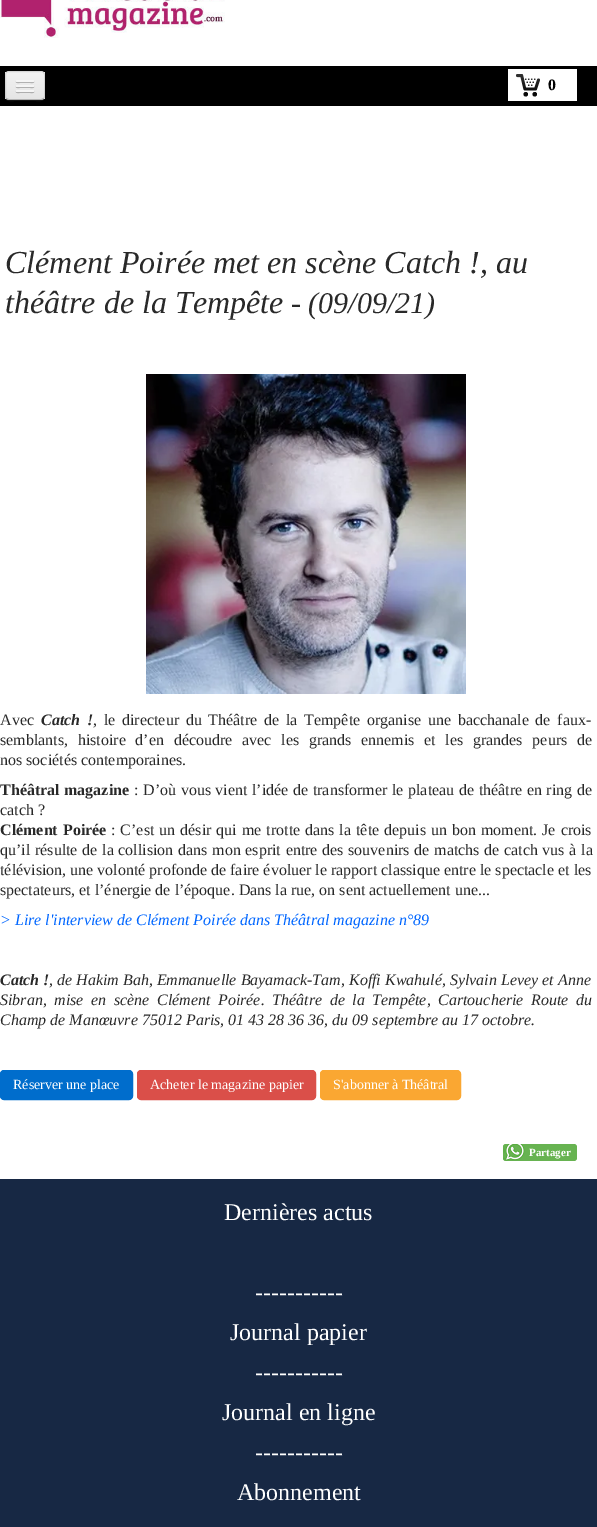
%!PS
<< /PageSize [597 1527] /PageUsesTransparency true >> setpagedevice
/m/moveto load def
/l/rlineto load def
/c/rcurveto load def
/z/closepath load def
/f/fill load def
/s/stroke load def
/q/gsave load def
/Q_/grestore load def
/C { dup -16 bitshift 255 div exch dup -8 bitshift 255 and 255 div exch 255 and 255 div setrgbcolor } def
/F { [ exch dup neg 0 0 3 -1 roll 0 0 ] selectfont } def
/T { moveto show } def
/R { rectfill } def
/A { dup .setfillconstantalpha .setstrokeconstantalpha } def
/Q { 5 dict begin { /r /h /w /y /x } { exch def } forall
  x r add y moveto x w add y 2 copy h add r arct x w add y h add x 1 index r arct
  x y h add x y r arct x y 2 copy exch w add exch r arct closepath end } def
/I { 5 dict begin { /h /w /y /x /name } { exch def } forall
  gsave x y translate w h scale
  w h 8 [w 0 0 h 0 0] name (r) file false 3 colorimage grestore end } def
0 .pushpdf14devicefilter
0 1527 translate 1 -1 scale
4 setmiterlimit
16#FFFFFF C
0 0 597 1527 R
(1.rgb) 0 0 225 38 I
16#000000 C
0 66 597 40 R
16#131313 C
5 96 m 0 6 5 5 9 5 c 22 0 l 4 0 9 1 9 -5 c 0 2 -2 4 -4 4 c -32 0 l -2 0 -4 -2 -4 -4 c z f
16#EDEDED C
5 71 40 29 4 Q f
q
5 71 40 29 4 Q clip newpath
q 5 72 m 40 0 l 0 27 l -40 0 l z clip newpath
<< /ShadingType 2 /ColorSpace /DeviceRGB /Coords [25 72 25 99] /Extend [true true] /Function << /FunctionType 2 /Domain [0 1] /C0 [.949 .949 .949] /C1 [.898 .898 .898] /N 1 >> >> shfill Q_
Q_
0.25 A
16#000000 C
43.5 98.5 m -.5 .5 -1.5 1 -2.5 1 c -32 0 l -1 0 -2 -.5 -2.5 -1 c s
0.1 A
6.5 98.5 m -.5 -.5 -1 -1.5 -1 -2.5 c 0 -21 l 0 -1 .5 -2 1 -2.5 c .5 -.5 1.5 -1 2.5 -1 c 32 0 l 1 0 2 .5 2.5 1 c .5 .5 1 1.5 1 2.5 c 0 21 l 0 1 -.5 2 -1 2.5 c s
1 A
16#B2B2B2 C
16 81.5 m -1 2 3.5 1.5 3.5 1.5 c 11 0 l 0 0 4.5 .5 3.5 -1.5 c -1 1 -7.5 .5 -9 .5 c -1.5 0 -8 .5 -9 -.5 c z f
16#F5F5F5 C
16 80 18 2 1 Q f
16#B0B0B0 C
16 86.5 m -1 2 3.5 1.5 3.5 1.5 c 11 0 l 0 0 4.5 .5 3.5 -1.5 c -1 1 -7.5 .5 -9 .5 c -1.5 0 -8 .5 -9 -.5 c z f
16#F5F5F5 C
16 85 18 2 1 Q f
16#AEAEAE C
16 91.5 m -1 2 3.5 1.5 3.5 1.5 c 11 0 l 0 0 4.5 .5 3.5 -1.5 c -1 1 -7.5 .5 -9 .5 c -1.5 0 -8 .5 -9 -.5 c z f
16#F5F5F5 C
16 90 18 2 1 Q f
16#FFFFFF C
508 69 69 32 R
(2.rgb) 516 74 24 23 I
/LiberationSerif-Bold 16 F
16#000000 C
(0) 548 90 T
/LiberationSerif-Italic 32 F
16#292929 C
(Clément Poirée met en scène Catch !, au) 5 273 T
(théâtre de la Tempête) 5 313 T
/LiberationSerif-Italic 30 F
(- \(09/09/21\)) 291 313 T
(3.rgb) 146 374 320 320 I
/LiberationSerif-Regular 16 F
(Avec) 0 725 T
/LiberationSerif-BoldItalic 16 F
41 725 m 2.75 0 32 (Catch !) widthshow
/LiberationSerif-Regular 16 F
93 725 m 2.75 0 32 (, le directeur du Théâtre de la Tempête organise une bacchanale de faux-) widthshow
0 745 m 5.75 0 32 (semblants, histoire d’en découdre avec les grands ennemis et les grandes peurs de) widthshow
(nos sociétés contemporaines.) 0 765 T
/LiberationSerif-Bold 16 F
0 795 m .6 0 32 (Théâtral magazine) widthshow
/LiberationSerif-Regular 16 F
134 795 m .6 0 32 (: D’où vous vient l’idée de transformer le plateau de théâtre en ring de) widthshow
(catch ?) 0 815 T
/LiberationSerif-Bold 16 F
0 835 m 1 0 32 (Clément Poirée) widthshow
/LiberationSerif-Regular 16 F
111 835 m 1 0 32 (: C’est un désir qui me trotte dans la tête depuis un bon moment. Je crois) widthshow
0 855 m .7 0 32 (qu’il résulte de la collision dans mon esprit entre des souvenirs de matchs de catch vus à la) widthshow
(télévision, une volonté profonde de faire évoluer le rapport classique entre le spectacle et les) 0 875 T
(spectateurs, et l’énergie de l’époque. Dans la rue, on sent actuellement une...) 0 895 T
/LiberationSerif-Italic 16 F
16#0066FF C
(> Lire l'interview de Clément Poirée dans Théâtral magazine n°89) 0 925 T
/LiberationSerif-BoldItalic 16 F
16#292929 C
(Catch !) 0 985 T
/LiberationSerif-Italic 16 F
(, de Hakim Bah, Emmanuelle Bayamack-Tam, Koffi Kwahulé, Sylvain Levey et Anne) 49 985 T
0 1005 m 3.6 0 32 (Sibran, mise en scène Clément Poirée. Théâtre de la Tempête, Cartoucherie Route du) widthshow
(Champ de Manœuvre 75012 Paris, 01 43 28 36 36, du 09 septembre au 17 octobre.) 0 1025 T
16#006DCC C
.5 1070.5 132 29 3.5 Q q f Q_
s
/LiberationSerif-Regular 14 F
16#FFFFFF C
(Réserver une place) 13 1089 T
16#DA4F49 C
137.5 1070.5 178 29 3.5 Q q f Q_
s
16#FFFFFF C
(Acheter le magazine papier) 150 1089 T
16#FAA732 C
320.5 1070.5 140 29 3.5 Q q f Q_
s
16#FFFFFF C
(S'abonner à Théâtral) 333 1089 T
16#67B351 C
503 1144 74 17 3 Q f
(4.rgb) 503 1144 22 17 I
/LiberationSerif-Bold 11 F
16#FFFFFF C
(Partager) 529 1156 T
16#172844 C
0 1179 597 348 R
/LiberationSerif-Regular 24 F
16#FFFFFF C
(Dernières actus) 224 1220 T
(-----------) 255 1300 T
(Journal papier) 230 1340 T
(-----------) 255 1380 T
(Journal en ligne) 222 1420 T
(-----------) 255 1460 T
(Abonnement) 237 1500 T
.poppdf14devicefilter showpage
